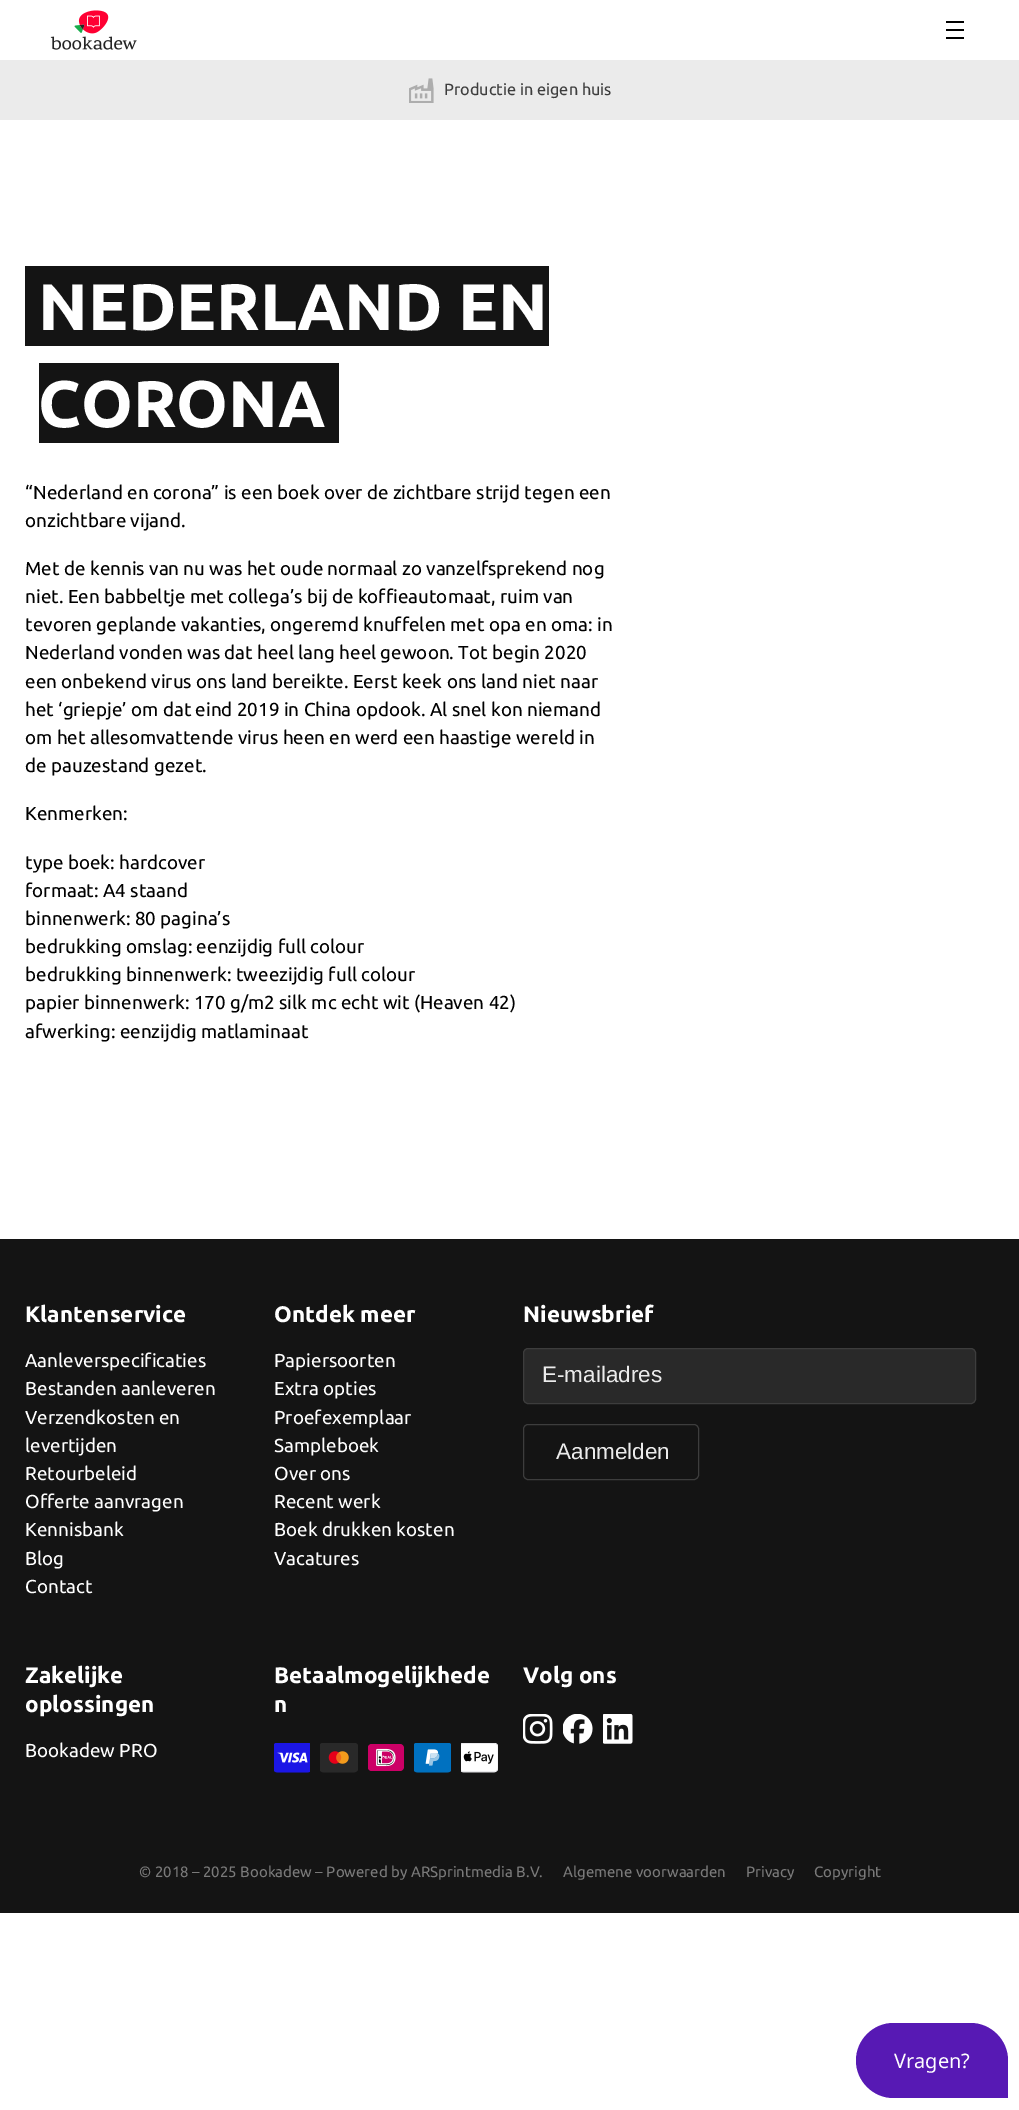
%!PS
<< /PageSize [1019 2110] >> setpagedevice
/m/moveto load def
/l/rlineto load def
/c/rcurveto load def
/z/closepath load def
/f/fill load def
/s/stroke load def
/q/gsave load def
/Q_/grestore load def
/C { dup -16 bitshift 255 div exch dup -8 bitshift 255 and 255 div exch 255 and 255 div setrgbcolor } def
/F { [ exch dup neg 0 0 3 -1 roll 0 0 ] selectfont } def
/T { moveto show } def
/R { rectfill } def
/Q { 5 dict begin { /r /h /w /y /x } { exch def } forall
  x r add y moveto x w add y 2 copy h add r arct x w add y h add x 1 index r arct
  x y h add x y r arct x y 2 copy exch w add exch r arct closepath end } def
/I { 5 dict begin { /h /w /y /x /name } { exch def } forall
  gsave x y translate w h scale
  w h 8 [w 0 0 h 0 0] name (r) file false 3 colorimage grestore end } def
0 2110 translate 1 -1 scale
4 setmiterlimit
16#FFFFFF C
0 0 1019 2110 R
(1.rgb) 50 10 87 40 I
16#000000 C
946 21 18 2 R
946 29 18 2 R
946 37 18 2 R
16#EBEBEB C
0 60 1019 60 R
(2.rgb) 409 78 25 25 I
/Ubuntu-Regular 16.25 F
16#3D3D3D C
(Productie in eigen huis) 444 95 T
16#141414 C
25 266 524 80 R
/Ubuntu-Bold 65.75 F
16#FFFFFF C
(NEDERLAND EN) 38 330 T
16#141414 C
39 363 300 80 R
16#FFFFFF C
(CORONA) 38 427 T
/Ubuntu-Regular 18.8 F
16#000000 C
(“Nederland en corona” is een boek over de zichtbare strijd tegen een) 25 499 T
(onzichtbare vijand.) 25 527 T
(Met de kennis van nu was het oude normaal zo vanzelfsprekend nog) 25 575 T
(niet. Een babbeltje met collega’s bij de koffieautomaat, ruim van) 25 603 T
(tevoren geplande vakanties, ongeremd knuffelen met opa en oma: in) 25 631 T
(Nederland vonden was dat heel lang heel gewoon. Tot begin 2020) 25 659 T
(een onbekend virus ons land bereikte. Eerst keek ons land niet naar) 25 688 T
(het ‘griepje’ om dat eind 2019 in China opdook. Al snel kon niemand) 25 716 T
(om het allesomvattende virus heen en werd een haastige wereld in) 25 744 T
(de pauzestand gezet.) 25 772 T
(Kenmerken:) 25 820 T
(type boek: hardcover) 25 869 T
(formaat: A4 staand) 25 897 T
(binnenwerk: 80 pagina’s) 25 925 T
(bedrukking omslag: eenzijdig full colour) 25 953 T
(bedrukking binnenwerk: tweezijdig full colour) 25 981 T
(papier binnenwerk: 170 g/m2 silk mc echt wit \(Heaven 42\)) 25 1009 T
(afwerking: eenzijdig matlaminaat) 25 1038 T
16#141414 C
0 1239 1019 674 R
/Ubuntu-Bold 22.5 F
16#FFFFFF C
(Klantenservice) 25 1322 T
/Ubuntu-Regular 18.8 F
(Aanleverspecificaties) 25 1367 T
(Bestanden aanleveren) 25 1395 T
(Verzendkosten en) 25 1424 T
(levertijden) 25 1452 T
(Retourbeleid) 25 1480 T
(Offerte aanvragen) 25 1508 T
(Kennisbank) 25 1536 T
(Blog) 25 1565 T
(Contact) 25 1593 T
/Ubuntu-Bold 22.5 F
(Ontdek meer) 274 1322 T
/Ubuntu-Regular 18.8 F
(Papiersoorten) 274 1367 T
(Extra opties) 274 1395 T
(Proefexemplaar) 274 1424 T
(Sampleboek) 274 1452 T
(Over ons) 274 1480 T
(Recent werk) 274 1508 T
(Boek drukken kosten) 274 1536 T
(Vacatures) 274 1565 T
/Ubuntu-Bold 22.5 F
(Nieuwsbrief) 523 1322 T
16#292929 C
523.5 1348.5 452 55 4.5 Q q f Q_
16#3D3D3D C
s
/LiberationSans-Regular 22.5 F
16#EBEBEB C
(E-mailadres) 542 1382 T
16#3D3D3D C
523.5 1424.5 175 55 4.5 Q s
16#EBEBEB C
(Aanmelden) 556 1459 T
/Ubuntu-Bold 22.5 F
16#FFFFFF C
(Zakelijke) 25 1683 T
(oplossingen) 25 1712 T
/Ubuntu-Regular 18.8 F
(Bookadew PRO) 25 1757 T
/Ubuntu-Bold 22.5 F
(Betaalmogelijkhede) 274 1683 T
(n) 274 1712 T
(3.rgb) 274 1743 36 30 I
(4.rgb) 320 1743 38 30 I
(5.rgb) 368 1744 36 27 I
(6.rgb) 414 1743 37 30 I
(7.rgb) 461 1743 37 30 I
(Volg ons) 523 1683 T
(8.rgb) 523 1714 30 30 I
(9.rgb) 563 1714 30 30 I
(10.rgb) 603 1714 30 30 I
/Ubuntu-Regular 15 F
16#7A7A7A C
(© 2018 – 2025 Bookadew – Powered by ARSprintmedia B.V.) 139 1877 T
(Algemene voorwaarden) 563 1877 T
(Privacy) 746 1877 T
(Copyright) 814 1877 T
16#5719B4 C
893.5 2023 m 77 0 l 20.5 0 37.5 17 37.5 37.5 c 0 37.5 l -114.5 0 l -20.5 0 -37.5 -17 -37.5 -37.5 c 0 -20.5 17 -37.5 37.5 -37.5 c z f
/NotoSans-Regular 20 F
16#FFFFFF C
(Vragen?) 894 2068 T
showpage
